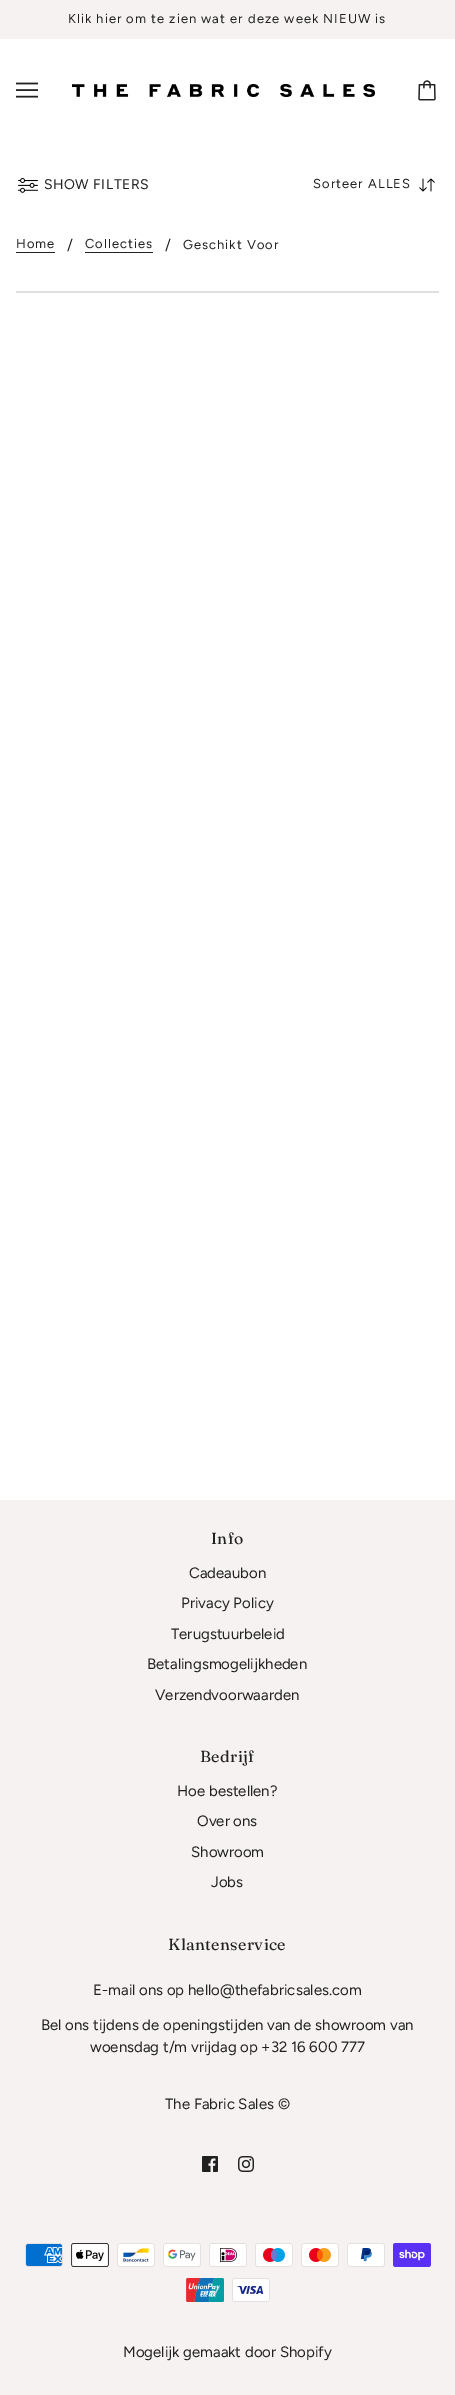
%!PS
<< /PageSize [455 2395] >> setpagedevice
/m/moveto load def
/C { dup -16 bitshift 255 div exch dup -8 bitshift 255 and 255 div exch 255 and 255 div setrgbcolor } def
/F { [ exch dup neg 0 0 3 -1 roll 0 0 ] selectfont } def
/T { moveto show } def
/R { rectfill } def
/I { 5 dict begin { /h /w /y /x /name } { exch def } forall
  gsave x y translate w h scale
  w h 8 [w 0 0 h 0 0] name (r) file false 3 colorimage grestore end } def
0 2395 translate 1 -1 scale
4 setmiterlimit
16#FFFFFF C
0 0 455 2395 R
16#F7F2F2 C
0 0 455 39 R
/Figtree-Regular 13 F
16#212121 C
68 23 m 1 0 (Klik hier om te zien wat er deze week NIEUW is) ashow
(1.rgb) 16 82 22 16 I
(2.rgb) 72 84 303 13 I
(3.rgb) 418 80 18 21 I
(4.rgb) 18 178 20 15 I
/Figtree-Regular 14 F
44 189 m .5 0 (SHOW FILTERS) ashow
/Figtree-Regular 13 F
313 188 m 1 0 (Sorteer) ashow
368 188 m 1 0 (ALLES) ashow
(5.rgb) 419 178 16 14 I
16 248 m 1 0 (Home) ashow
16 252 39 1 R
/Figtree-Regular 15 F
(/) 67 250 T
/Figtree-Regular 13 F
85 248 m 1 0 (Collecties) ashow
85 252 68 1 R
/Figtree-Regular 15 F
(/) 165 250 T
/Figtree-Regular 13 F
183 249 m 1 0 (Geschikt Voor) ashow
16#E0E0E0 C
16 291 423 2 R
16#F7F2F2 C
0 1500 455 895 R
/Fraunces-Regular 16 F
16#212121 C
211 1544 m .4 0 (Info) ashow
/Figtree-Regular 15 F
(Cadeaubon) 189 1578 T
(Privacy Policy) 181 1608 T
(Terugstuurbeleid) 171 1639 T
(Betalingsmogelijkheden) 147 1669 T
(Verzendvoorwaarden) 155 1700 T
/Fraunces-Regular 16 F
200 1762 m .4 0 (Bedrijf) ashow
/Figtree-Regular 15 F
(Hoe bestellen?) 177 1796 T
(Over ons) 197 1826 T
(Showroom) 191 1857 T
(Jobs) 211 1887 T
/Fraunces-Regular 16 F
168 1950 m .4 0 (Klantenservice) ashow
/Figtree-Regular 15 F
(E-mail ons op hello@thefabricsales.com) 93 1995 T
(Bel ons tijdens de openingstijden van de showroom van) 41 2030 T
(woensdag t/m vrijdag op +32 16 600 777) 90 2052 T
(The Fabric Sales ©) 165 2109 T
(6.rgb) 202 2156 16 16 I
(7.rgb) 238 2156 16 16 I
(8.rgb) 25 2243 38 24 I
(9.rgb) 71 2243 38 24 I
(10.rgb) 117 2243 38 24 I
(11.rgb) 163 2243 38 24 I
(12.rgb) 209 2243 38 24 I
(13.rgb) 255 2243 38 24 I
(14.rgb) 301 2243 38 24 I
(15.rgb) 347 2243 38 24 I
(16.rgb) 393 2243 38 24 I
(17.rgb) 186 2278 38 24 I
(18.rgb) 232 2278 38 24 I
(Mogelijk gemaakt door Shopify) 123 2357 T
showpage
